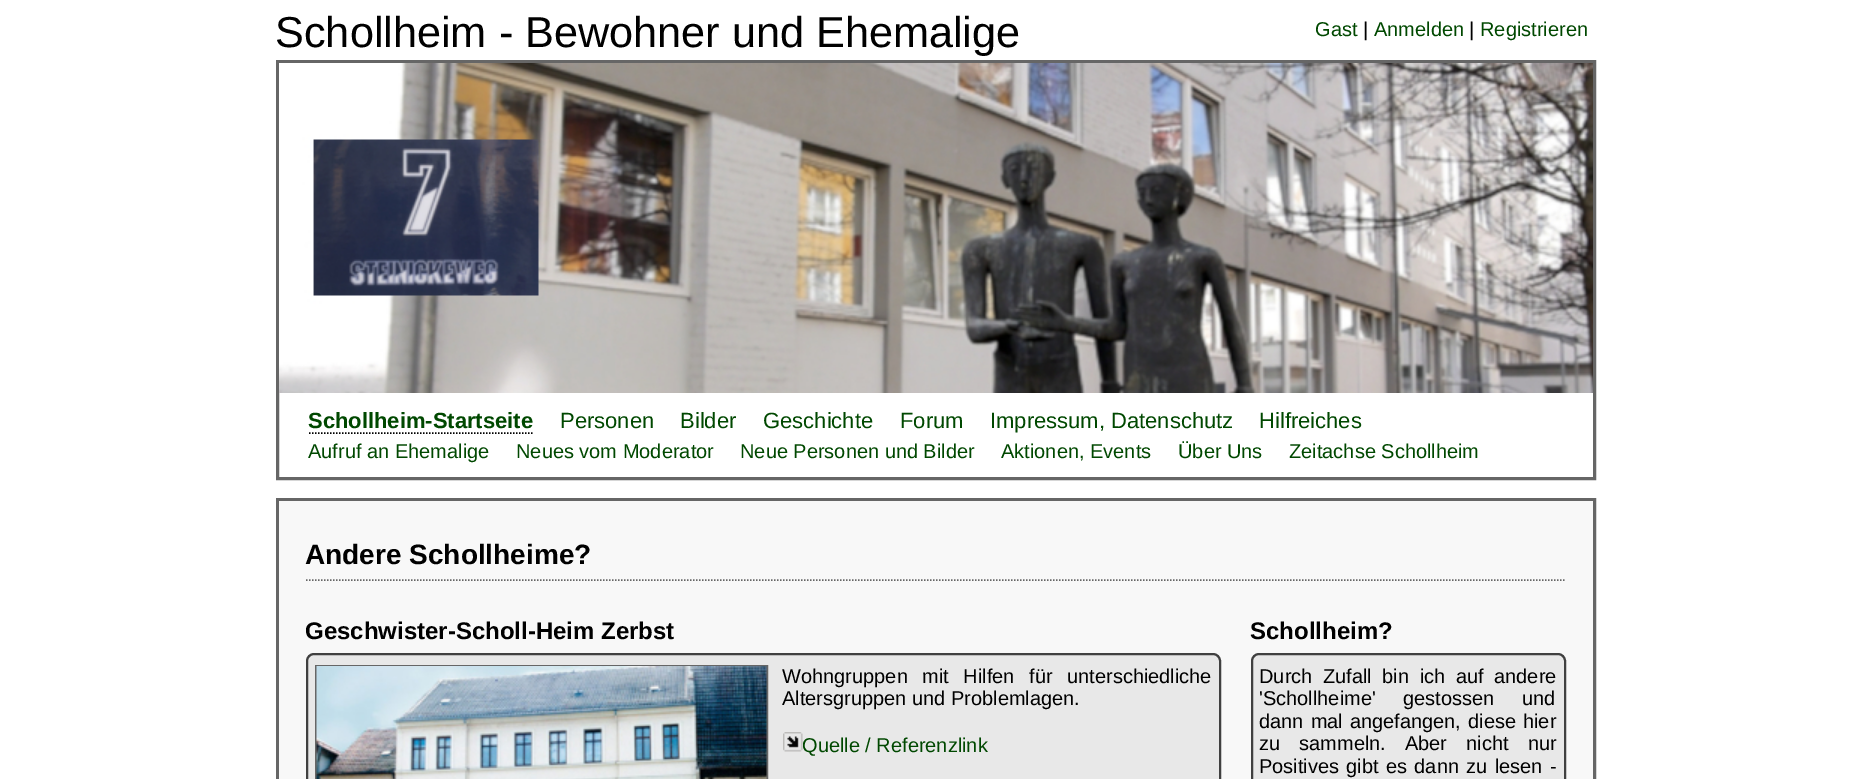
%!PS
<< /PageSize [1870 779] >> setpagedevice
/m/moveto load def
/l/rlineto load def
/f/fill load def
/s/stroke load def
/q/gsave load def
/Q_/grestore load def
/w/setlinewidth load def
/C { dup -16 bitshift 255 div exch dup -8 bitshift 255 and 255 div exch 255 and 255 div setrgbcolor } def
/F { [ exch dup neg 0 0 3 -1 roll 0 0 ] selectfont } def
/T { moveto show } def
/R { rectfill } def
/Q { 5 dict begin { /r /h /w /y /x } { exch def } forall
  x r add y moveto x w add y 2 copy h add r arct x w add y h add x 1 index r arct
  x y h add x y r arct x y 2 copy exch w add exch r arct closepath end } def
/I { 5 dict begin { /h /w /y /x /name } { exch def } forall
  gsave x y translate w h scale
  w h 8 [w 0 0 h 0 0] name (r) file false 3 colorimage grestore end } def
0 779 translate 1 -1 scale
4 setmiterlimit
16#FFFFFF C
0 0 1870 779 R
/LiberationSans-Regular 43.25 F
16#000000 C
(Schollheim - Bewohner und Ehemalige) 275 47 T
/LiberationSans-Regular 20 F
16#004800 C
(Gast) 1315 36 T
16#000000 C
(|) 1363 36 T
16#004800 C
(Anmelden) 1374 36 T
16#000000 C
(|) 1469 36 T
16#004800 C
(Registrieren) 1480 36 T
16#666666 C
3 w
277.5 61.5 1317 417 rectstroke
(1.rgb) 279 63 1314 330 I
/LiberationSans-Bold 22 F
16#004800 C
(Schollheim-Startseite) 308 428 T
16#000000 C
1.5 w
[1.5 1.5] 0 setdash
309 433 m 223.5 0 l s
/LiberationSans-Regular 22 F
16#004800 C
(Personen) 560 428 T
(Bilder) 680 428 T
(Geschichte) 763 428 T
(Forum) 900 428 T
(Impressum, Datenschutz) 990 428 T
(Hilfreiches) 1259 428 T
/LiberationSans-Regular 20 F
(Aufruf an Ehemalige) 308 458 T
(Neues vom Moderator) 516 458 T
(Neue Personen und Bilder) 740 458 T
(Aktionen, Events) 1001 458 T
(Über Uns) 1178 458 T
(Zeitachse Schollheim) 1289 458 T
16#666666 C
3 w
[] 0 setdash
277.5 499.5 1317 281 rectstroke
16#F8F8F8 C
279 501 1314 278 R
16#666666 C
1.5 w
[1.5 1.5] 0 setdash
306 580 m 1260 0 l s
/LiberationSans-Bold 28 F
16#000000 C
(Andere Schollheime?) 305 564 T
/LiberationSans-Bold 24 F
(Geschwister-Scholl-Heim Zerbst) 305 639 T
16#E8E8E8 C
307 654 913 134 7 Q q f Q_
16#404040 C
2 w
[] 0 setdash
s
16#666666 C
316 666 451 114 rectstroke
(2.rgb) 316 666 451 113 I
/LiberationSans-Regular 20 F
16#000000 C
782 683 m 9 0 32 (Wohngruppen mit Hilfen für unterschiedliche) widthshow
(Altersgruppen und Problemlagen.) 782 705 T
(3.rgb) 783 732 20 20 I
16#004800 C
(Quelle / Referenzlink) 802 752 T
/LiberationSans-Bold 24 F
16#000000 C
(Schollheim?) 1250 639 T
16#E8E8E8 C
1252 654 313 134 7 Q q f Q_
16#404040 C
s
/LiberationSans-Regular 20 F
16#000000 C
1259 683 m 5 0 32 (Durch Zufall bin ich auf andere) widthshow
1259 705 m 22 0 32 ('Schollheime' gestossen und) widthshow
1259 728 m 1.5 0 32 (dann mal angefangen, diese hier) widthshow
1259 750 m 13.5 0 32 (zu sammeln. Aber nicht nur) widthshow
1259 773 m 1.75 0 32 (Positives gibt es dann zu lesen -) widthshow
showpage
